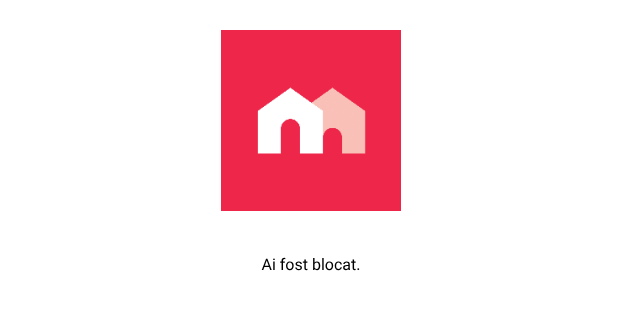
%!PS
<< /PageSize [622 309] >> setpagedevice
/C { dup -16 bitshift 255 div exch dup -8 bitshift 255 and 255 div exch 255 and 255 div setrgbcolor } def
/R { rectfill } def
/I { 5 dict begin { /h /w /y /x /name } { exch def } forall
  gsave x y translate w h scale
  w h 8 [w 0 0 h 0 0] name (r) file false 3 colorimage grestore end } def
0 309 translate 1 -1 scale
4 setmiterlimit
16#FFFFFF C
0 0 622 309 R
(1.rgb) 221 30 180 241 I
showpage
